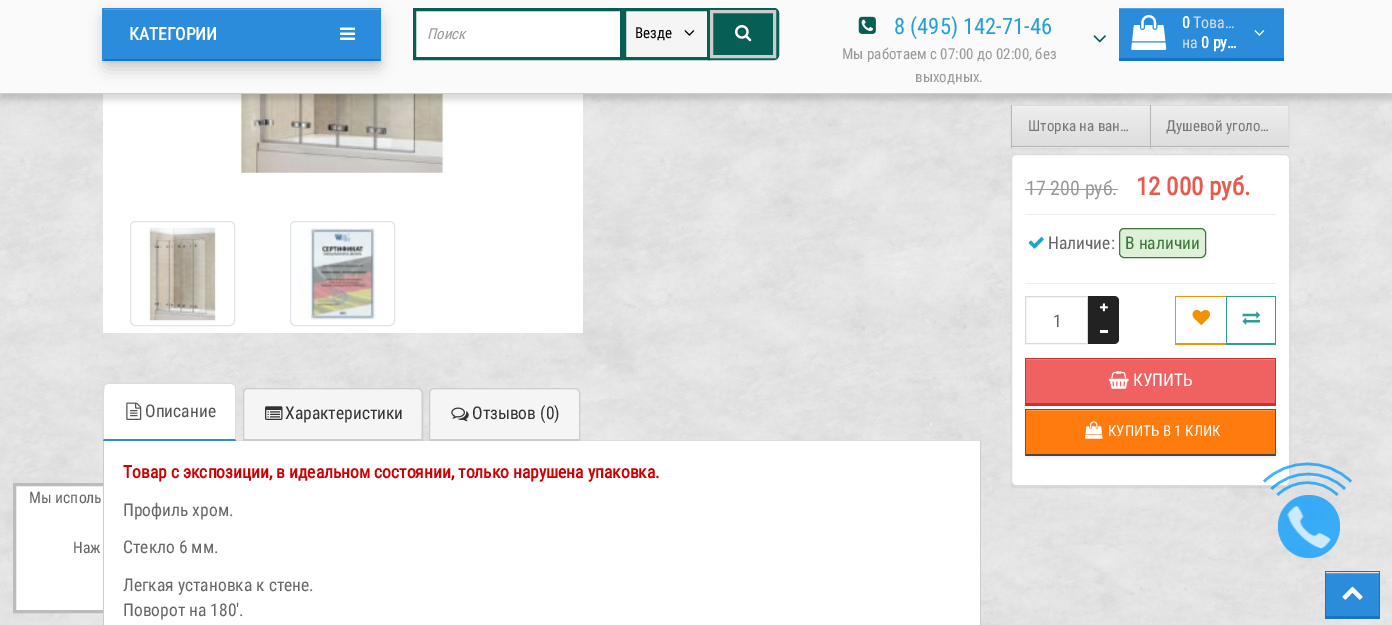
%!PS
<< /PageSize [1392 625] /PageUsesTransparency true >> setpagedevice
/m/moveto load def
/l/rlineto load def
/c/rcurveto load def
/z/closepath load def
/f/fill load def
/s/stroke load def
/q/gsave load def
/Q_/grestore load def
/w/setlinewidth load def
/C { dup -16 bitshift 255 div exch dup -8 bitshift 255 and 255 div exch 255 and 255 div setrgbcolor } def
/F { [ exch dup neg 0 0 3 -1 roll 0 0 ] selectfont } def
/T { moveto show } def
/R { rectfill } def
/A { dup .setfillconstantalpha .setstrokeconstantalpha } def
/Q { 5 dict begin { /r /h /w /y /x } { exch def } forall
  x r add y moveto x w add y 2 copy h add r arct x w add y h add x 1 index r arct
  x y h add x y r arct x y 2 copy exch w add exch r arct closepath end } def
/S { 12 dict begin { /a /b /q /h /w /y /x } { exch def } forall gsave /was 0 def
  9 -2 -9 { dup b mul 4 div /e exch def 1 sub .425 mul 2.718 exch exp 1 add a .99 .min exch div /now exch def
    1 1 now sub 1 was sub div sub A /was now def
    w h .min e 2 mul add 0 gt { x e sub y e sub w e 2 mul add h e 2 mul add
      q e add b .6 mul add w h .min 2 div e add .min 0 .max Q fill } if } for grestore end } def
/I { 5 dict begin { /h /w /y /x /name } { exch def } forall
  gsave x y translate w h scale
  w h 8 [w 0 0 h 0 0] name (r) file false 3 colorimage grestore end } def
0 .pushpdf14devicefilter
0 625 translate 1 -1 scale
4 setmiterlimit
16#FFFFFF C
0 0 1392 625 R
(1.rgb) 0 94 1392 531 I
103 94 480 239 R
(9.rgb) 239 94 207 79 I
16#000000 C
1011 106 140 43 0 1 .05 S
q 1012 106 m 138 0 l 0 40 l -138 0 l z clip newpath
<< /ShadingType 2 /ColorSpace /DeviceRGB /Coords [1081 106 1081 146] /Extend [true true] /Function << /FunctionType 2 /Domain [0 1] /C0 [.933 .933 .933] /C1 [.867 .867 .867] /N 1 >> >> shfill Q_
16#F1F1F1 C
1013 106 137 1 R
16#DDDDDD C
1020 105 131 1 R
16#B3B3B3 C
1011 146 140 1 R
16#B7B7B7 C
1011 105 1 43 R
16#E7E7E7 C
1012 147 138 1 R
16#000000 C
1150 106 139 43 0 1 .05 S
q 1151 107 m 137 0 l 0 39 l -137 0 l z clip newpath
<< /ShadingType 2 /ColorSpace /DeviceRGB /Coords [1219 106 1219 146] /Extend [true true] /Function << /FunctionType 2 /Domain [0 1] /C0 [.933 .933 .933] /C1 [.867 .867 .867] /N 1 >> >> shfill Q_
16#F1F1F1 C
1151 106 137 1 R
16#DDDDDD C
1159 105 130 1 R
1288 105 1 43 R
16#B3B3B3 C
1150 146 139 1 R
16#B7B7B7 C
1150 105 1 43 R
16#000000 C
0 6 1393 94 0 3 .15 S
16#FAFAFA C
0 0 1392 93 R
16#CCCCCC C
0 93 1392 1 R
16#000000 C
103 15 278 54 5 7.5 .18 S
103 9 278 54 0 1 .05 S
16#2B8CDB C
104 10 276 49 R
16#55A3E2 C
104 9 276 1 R
16#2B8CDB C
103 8 278 1 R
381 8 m 0 53 l -1 -2 l 0 -50 l z f
16#1475C4 C
381 61 m -279 0 l 2 -2 l 276 0 l z f
16#2B8CDB C
102 61 m 0 -53 l 2 1 l 0 50 l z f
/RobotoCondensed-Bold 17.5 F
16#FFFFFF C
(КАТЕГОРИИ) 129 40 T
(2.rgb) 340 27 15 13 I
414.5 9.5 m 207 0 l 0 49 l -207 0 l z q f Q_
16#075E55 C
3 w
s
/RobotoCondensed-Italic 15 F
16#999999 C
(Поиск) 427 39 T
16#F5F5F5 C
624.5 9.5 m 84 0 l 0 49 l -84 0 l z q f Q_
16#075E55 C
s
/RobotoCondensed-Regular 15 F
16#000000 C
(Везде) 635 38 T
(3.rgb) 684 30 11 6 I
16#075E55 C
709.5 9.5 m 64.5 0 l 2 0 3.5 1.5 3.5 3.5 c 0 42 l 0 2 -1.5 3.5 -3.5 3.5 c -64.5 0 l z q f Q_
s
16#CCCCCC C
711.5 11.5 63 45 rectstroke
(4.rgb) 735 25 17 17 I
(5.rgb) 858 16 18 18 I
/RobotoCondensed-Regular 22.5 F
16#23A1D1 C
(8 \(495\) 142-71-46) 894 34 T
(6.rgb) 1093 35 13 8 I
/RobotoCondensed-Regular 15 F
16#999999 C
(Мы работаем с 07:00 до 02:00, без) 842 59 T
(выходных.) 915 82 T
16#2B8CDB C
1119 9 165 49 R
16#55A3E2 C
1119 8 165 1 R
16#1475C4 C
1119 58 165 3 R
(7.rgb) 1131 15 36 35 I
/RobotoCondensed-Bold 16 F
16#FFFFFF C
(0) 1182 28 T
/RobotoCondensed-Regular 16 F
16#DDDDDD C
(Tова…) 1193 28 T
(на) 1182 48 T
/RobotoCondensed-Bold 16 F
16#FFFFFF C
(0 ру…) 1201 48 T
(8.rgb) 1254 30 11 6 I
16 486 87 124 R
16#BBBBBB C
14.5 484.5 322 127 rectstroke
/RobotoCondensed-Regular 15.75 F
16#666666 C
(Мы исполь) 29 503 T
(Наж) 73 553 T
16#E0E4E6 C
1 w
130.5 221.5 104 104 4.5 Q s
(10.rgb) 146 227 71 94 I
290.5 221.5 104 104 4.5 Q s
(11.rgb) 296 227 81 93 I
/RobotoCondensed-Regular 15 F
16#777777 C
(Шторка на ван…) 1028 131 T
16#E7E7E7 C
1151 147 137 1 R
16#777777 C
(Душевой уголо…) 1166 131 T
16#000000 C
1011 155 279 333 5 .5 .05 S
16#FFFFFF C
1011.5 154.5 278 331 4.5 Q q f Q_
16#DDDDDD C
s
/RobotoCondensed-Regular 20 F
16#999999 C
(17 200 руб.) 1026 195 T
1025 189 93 1 R
/RobotoCondensed-Bold 25 F
16#E55B4C C
(12 000 руб.) 1136 195 T
16#EEEEEE C
1025 214 251 1 R
(12.rgb) 1028 237 16 12 I
/RobotoCondensed-Regular 17.5 F
16#666666 C
(Наличие:) 1048 249 T
16#DFF0D8 C
1119.5 228.5 86 29 4.5 Q q f Q_
16#3C763D C
s
(В наличии) 1125 249 T
16#EEEEEE C
1025 283 251 1 R
16#D9D9D9 C
1025.5 296.5 62 47 rectstroke
16#666666 C
(1) 1053 327 T
16#222222 C
1088 296 m 26 0 l 3 0 5 2 5 5 c 0 19 l -31 0 l z f
(13.rgb) 1100 303 8 9 I
1088 320 m 31 0 l 0 19 l 0 3 -2 5 -5 5 c -26 0 l z f
16#FFFFFF C
1100 330 8 3 R
16#F09300 C
1175 296 53 1 R
1175 343 53 2 R
1175 296 1 49 R
(14.rgb) 1192 310 18 15 I
16#2E9F94 C
1226 296 50 1 R
1275 296 1 49 R
1226 343 50 2 R
1226 296 1 49 R
(15.rgb) 1242 311 18 14 I
16#F06262 C
1026 360 249 43 R
16#F38181 C
1026 359 249 1 R
16#CA3030 C
1025 358 251 1 R
1275 358 1 47 R
1025 403 251 3 R
1025 358 1 47 R
(16.rgb) 1108 371 21 18 I
16#FFFFFF C
(КУПИТЬ) 1133 386 T
16#000000 C
1025 410 251 48 0 1 .05 S
16#FF7B0D C
1026 411 249 43 R
16#FF953D C
1026 410 249 1 R
16#555555 C
1025 409 251 1 R
1276 409 m 0 47 l -1 -2 l 0 -44 l z f
16#474747 C
1276 456 m -251 0 l 1 -2 l 249 0 l z f
16#555555 C
1025 456 m 0 -47 l 1 1 l 0 44 l z f
(17.rgb) 1085 421 18 18 I
/RobotoCondensed-Regular 15 F
16#FFFFFF C
(КУПИТЬ В 1 КЛИК) 1108 436 T
16#DDDDDD C
103 440 878 1 R
16#FFFFFF C
108 384 m 123 0 l 2 0 4 2 4 4 c 0 51 l -131 0 l 0 -51 l 0 -2 2 -4 4 -4 c z f
16#DDDDDD C
108 384 m -3 1 l -1 -1 l 2 -2 l 12 0 126 0 128 1 c 1 1 l -1 1 l -3 -1 l z f
235 384 m 1 1 1 3 1 4 c 0 53 l -1 -2 l 0 -51 l 0 -1 0 -2 -1 -3 c z f
16#2B8CDB C
236 441 m -133 0 l 1 -3 l 0 1 l 131 0 l z f
16#DDDDDD C
102 386 m 2 -2 l 1 1 l -2 2 -1 46 -1 53 c -2 3 l z f
(18.rgb) 126 402 16 18 I
/RobotoCondensed-Regular 17.5 F
16#555555 C
(Описание) 145 417 T
16#F5F5F5 C
248 389 m 169 0 l 2 0 4 2 4 4 c 0 46 l -177 0 l 0 -46 l 0 -2 2 -4 4 -4 c z f
16#CCCCCC C
248 388.5 m 170 0 l 2.5 0 4.5 2 4.5 4.5 c 0 47.5 l -179 0 l 0 -47.5 l 0 -2.5 2 -4.5 4.5 -4.5 c z s
243 439 180 1 R
(19.rgb) 265 406 18 14 I
16#333333 C
(Характеристики) 285 419 T
16#F5F5F5 C
434 389 m 141 0 l 2 0 4 2 4 4 c 0 46 l -149 0 l 0 -46 l 0 -2 2 -4 4 -4 c z f
16#CCCCCC C
434 388.5 m 141 0 l 2.5 0 4.5 2 4.5 4.5 c 0 47.5 l -150 0 l 0 -47.5 l 0 -2.5 2 -4.5 4.5 -4.5 c z s
429 439 151 1 R
(20.rgb) 451 407 18 15 I
16#333333 C
(Отзывов \(0\)) 472 419 T
16#FFFFFF C
104 441 876 184 R
16#CCCCCC C
980 441 1 184 R
103 441 1 184 R
/RobotoCondensed-Bold 17.5 F
16#CE0000 C
(Товар с экспозиции, в идеальном состоянии, только нарушена упаковка.) 123 478 T
/RobotoCondensed-Regular 17.5 F
16#666666 C
(Профиль хром.) 123 516 T
(Стекло 6 мм.) 123 553 T
(Легкая установка к стене.) 123 591 T
(Поворот на 180'.) 123 616 T
0.75 A
16#0099FF C
2.5 w
1264 481.5 m 24 -23.5 63 -23.5 87 0 c s
1271.5 489 m 20 -20 53.5 -20 73.5 0 c s
1278 495 62 63 31 Q f
1277.5 495 m 16.5 -16.5 43.5 -16.5 60 0 c s
1 A
(21.rgb) 1287 505 44 44 I
16#2B8CDB C
1326 574 53 42 R
16#55A3E2 C
1326 573 53 1 R
16#1475C4 C
1325 571 55 1 R
1379 571 1 48 R
1325 616 55 3 R
1325 571 1 48 R
(22.rgb) 1342 586 21 14 I
.poppdf14devicefilter showpage
